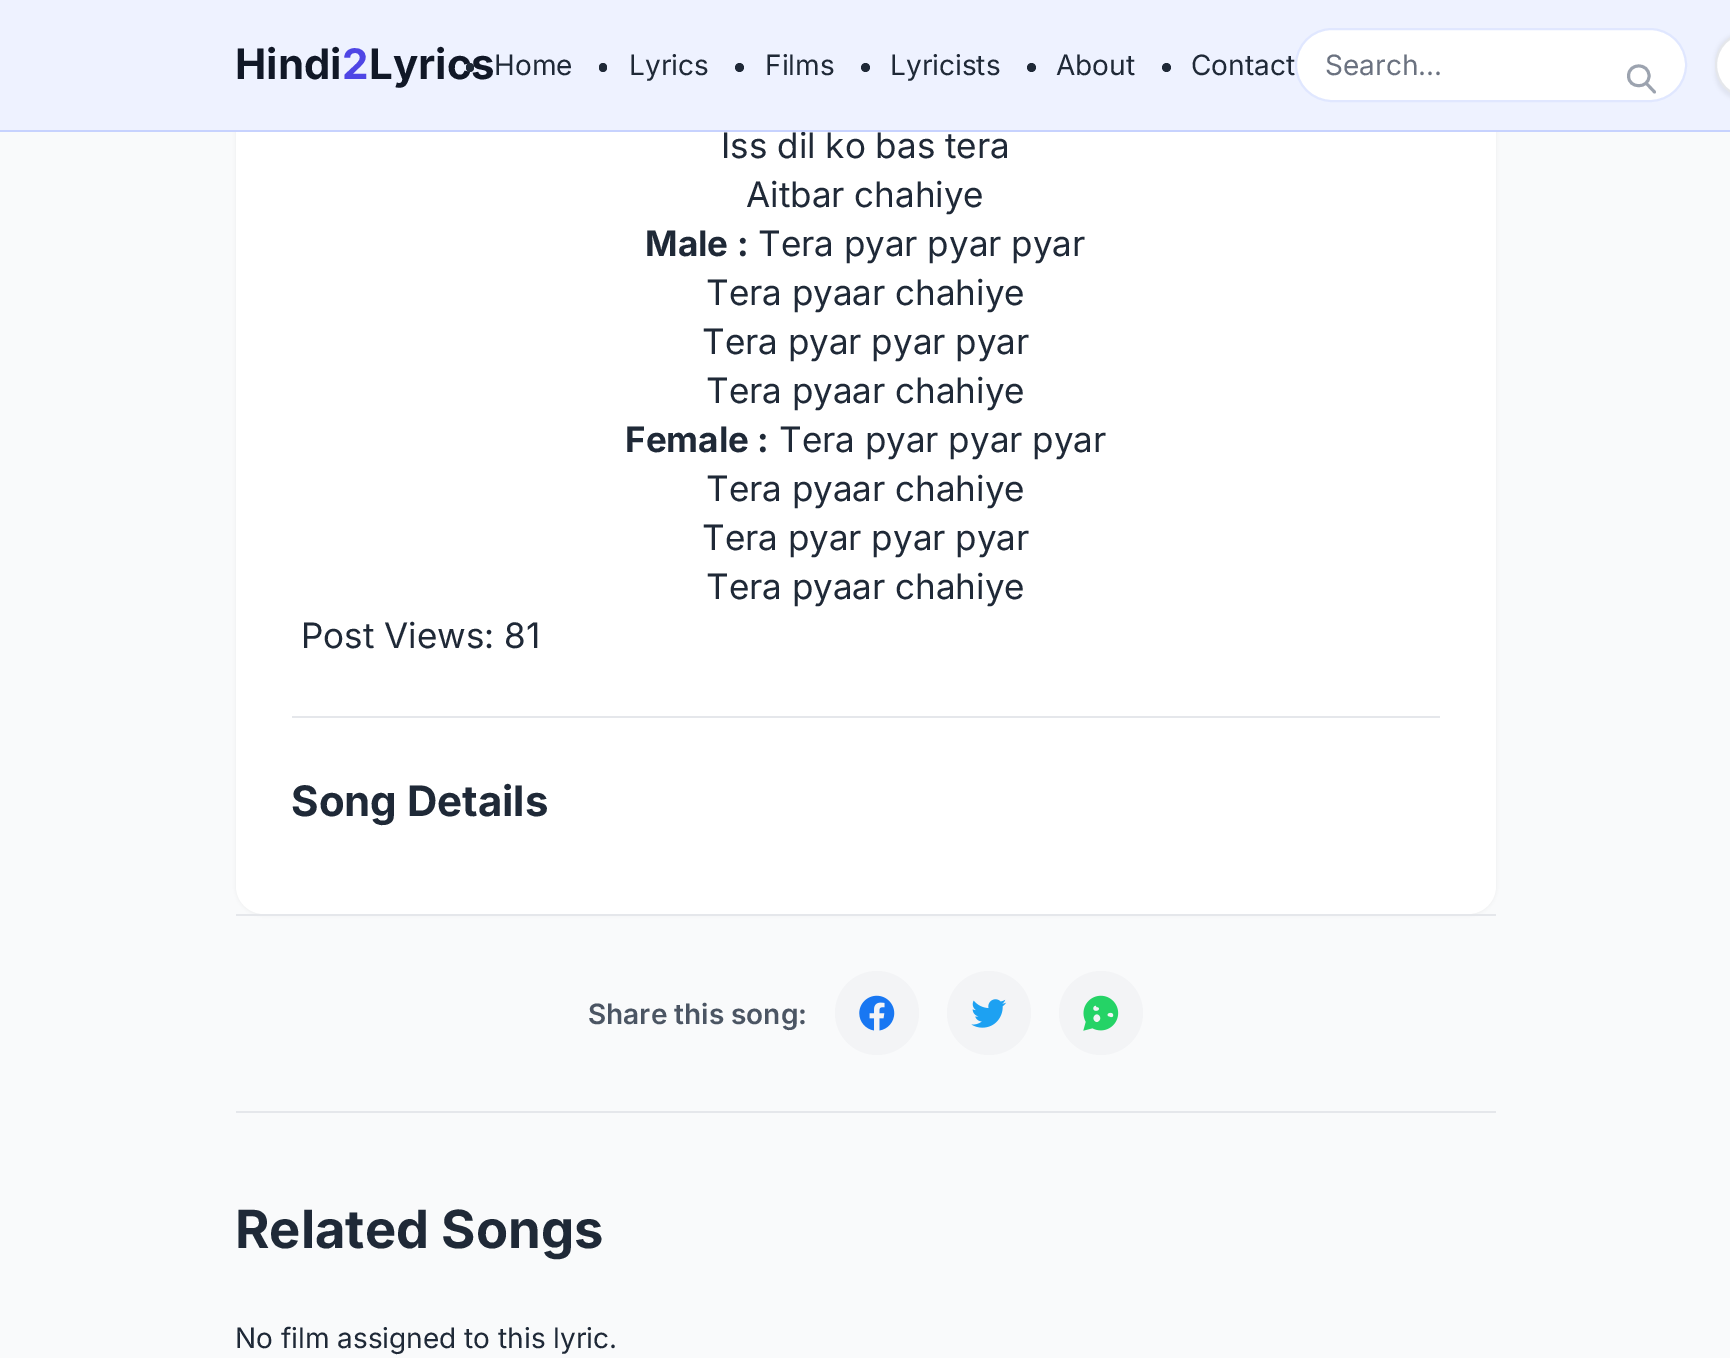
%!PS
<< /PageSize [1730 1358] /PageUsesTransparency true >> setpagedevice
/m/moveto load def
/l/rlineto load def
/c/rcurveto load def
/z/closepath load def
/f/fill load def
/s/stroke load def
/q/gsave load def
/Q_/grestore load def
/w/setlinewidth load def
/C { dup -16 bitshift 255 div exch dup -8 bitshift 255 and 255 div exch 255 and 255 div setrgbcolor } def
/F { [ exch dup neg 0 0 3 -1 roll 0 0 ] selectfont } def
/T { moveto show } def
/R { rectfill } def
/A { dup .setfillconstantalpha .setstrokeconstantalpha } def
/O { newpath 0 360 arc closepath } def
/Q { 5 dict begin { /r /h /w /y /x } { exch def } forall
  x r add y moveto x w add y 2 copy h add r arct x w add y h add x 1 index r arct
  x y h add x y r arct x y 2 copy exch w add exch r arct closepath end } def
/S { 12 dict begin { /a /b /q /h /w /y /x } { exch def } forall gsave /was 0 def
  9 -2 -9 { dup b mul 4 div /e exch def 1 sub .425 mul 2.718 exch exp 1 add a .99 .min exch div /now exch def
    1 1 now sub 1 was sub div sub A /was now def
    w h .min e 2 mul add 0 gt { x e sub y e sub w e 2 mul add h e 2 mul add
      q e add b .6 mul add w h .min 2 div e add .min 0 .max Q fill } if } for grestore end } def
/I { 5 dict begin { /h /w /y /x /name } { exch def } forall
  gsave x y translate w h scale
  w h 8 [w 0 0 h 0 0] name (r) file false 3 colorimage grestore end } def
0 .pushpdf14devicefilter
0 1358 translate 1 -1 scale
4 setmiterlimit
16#F9FAFB C
0 0 1730 1358 R
16#000000 C
236 -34 1260 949 28 2 .05 S
16#FFFFFF C
236 -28 1260 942 28 Q f
16#EEF2FF C
0 0 1730 130 R
/Inter-Regular 35 F
16#1F2937 C
(Iss dil ko bas tera) 721 158 T
16#C7D2FE C
0 130 1730 2 R
/Inter-Bold 42 F
16#111827 C
(Hindi) 235 79 T
16#4F46E5 C
(2) 342 79 T
16#111827 C
(Lyrics) 369 79 T
16#1F2937 C
466 63 8 9 4 Q f
/Inter-Regular 28 F
(Home) 494 75 T
599 63 8 9 4 Q f
(Lyrics) 629 75 T
739.5 67.5 4.5 O f
(Films) 765 75 T
865.5 67.5 4.5 O f
(Lyricists) 890 75 T
1031.5 67.5 4.5 O f
(About) 1056 75 T
1166.5 67.5 4.5 O f
(Contact) 1191 75 T
16#FFFFFF C
1296 29 390 72 36 Q q f Q_
16#E0E7FF C
2 w
s
16#6B7280 C
(Search...) 1325 75 T
16#9CA3AF C
2.9 w
1 setlinecap
1 setlinejoin
1654.5 92 m -8.5 -9 l 1649 76 m 0 13 -20.5 13 -20.5 0 c 0 -13.5 20.5 -13.5 20.5 0 c z s
16#000000 C
1715 33 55 67 33.5 2 .05 S
16#FFFFFF C
1716 33 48 64 32 Q q f Q_
16#E5E7EB C
2 w
0 setlinecap
0 setlinejoin
s
292 716 1148 2 R
/Inter-Regular 35 F
16#1F2937 C
(Aitbar chahiye) 746 207 T
/Inter-Bold 35 F
(Male :) 645 256 T
/Inter-Regular 35 F
(Tera pyar pyar pyar) 758 256 T
(Tera pyaar chahiye) 706 305 T
(Tera pyar pyar pyar) 702 354 T
(Tera pyaar chahiye) 706 403 T
/Inter-Bold 35 F
(Female :) 625 452 T
/Inter-Regular 35 F
(Tera pyar pyar pyar) 779 452 T
(Tera pyaar chahiye) 706 501 T
(Tera pyar pyar pyar) 702 550 T
(Tera pyaar chahiye) 706 599 T
(Post Views: 81) 301 648 T
/Inter-Bold 42 F
(Song Details) 291 816 T
16#E5E7EB C
236 914 1260 2 R
236 1111 1260 2 R
/Inter-SemiBold 28 F
16#4B5563 C
(Share this song:) 588 1024 T
16#F3F4F6 C
877 1013 42 O f
(1.rgb) 859 995 36 36 I
989 1013 42 O f
(2.rgb) 971 999 36 29 I
1101 1013 42 O f
(3.rgb) 1083 995 36 36 I
/Inter-Bold 52.5 F
16#1F2937 C
(Related Songs) 235 1248 T
/Inter-Regular 28 F
(No film assigned to this lyric.) 235 1348 T
.poppdf14devicefilter showpage
